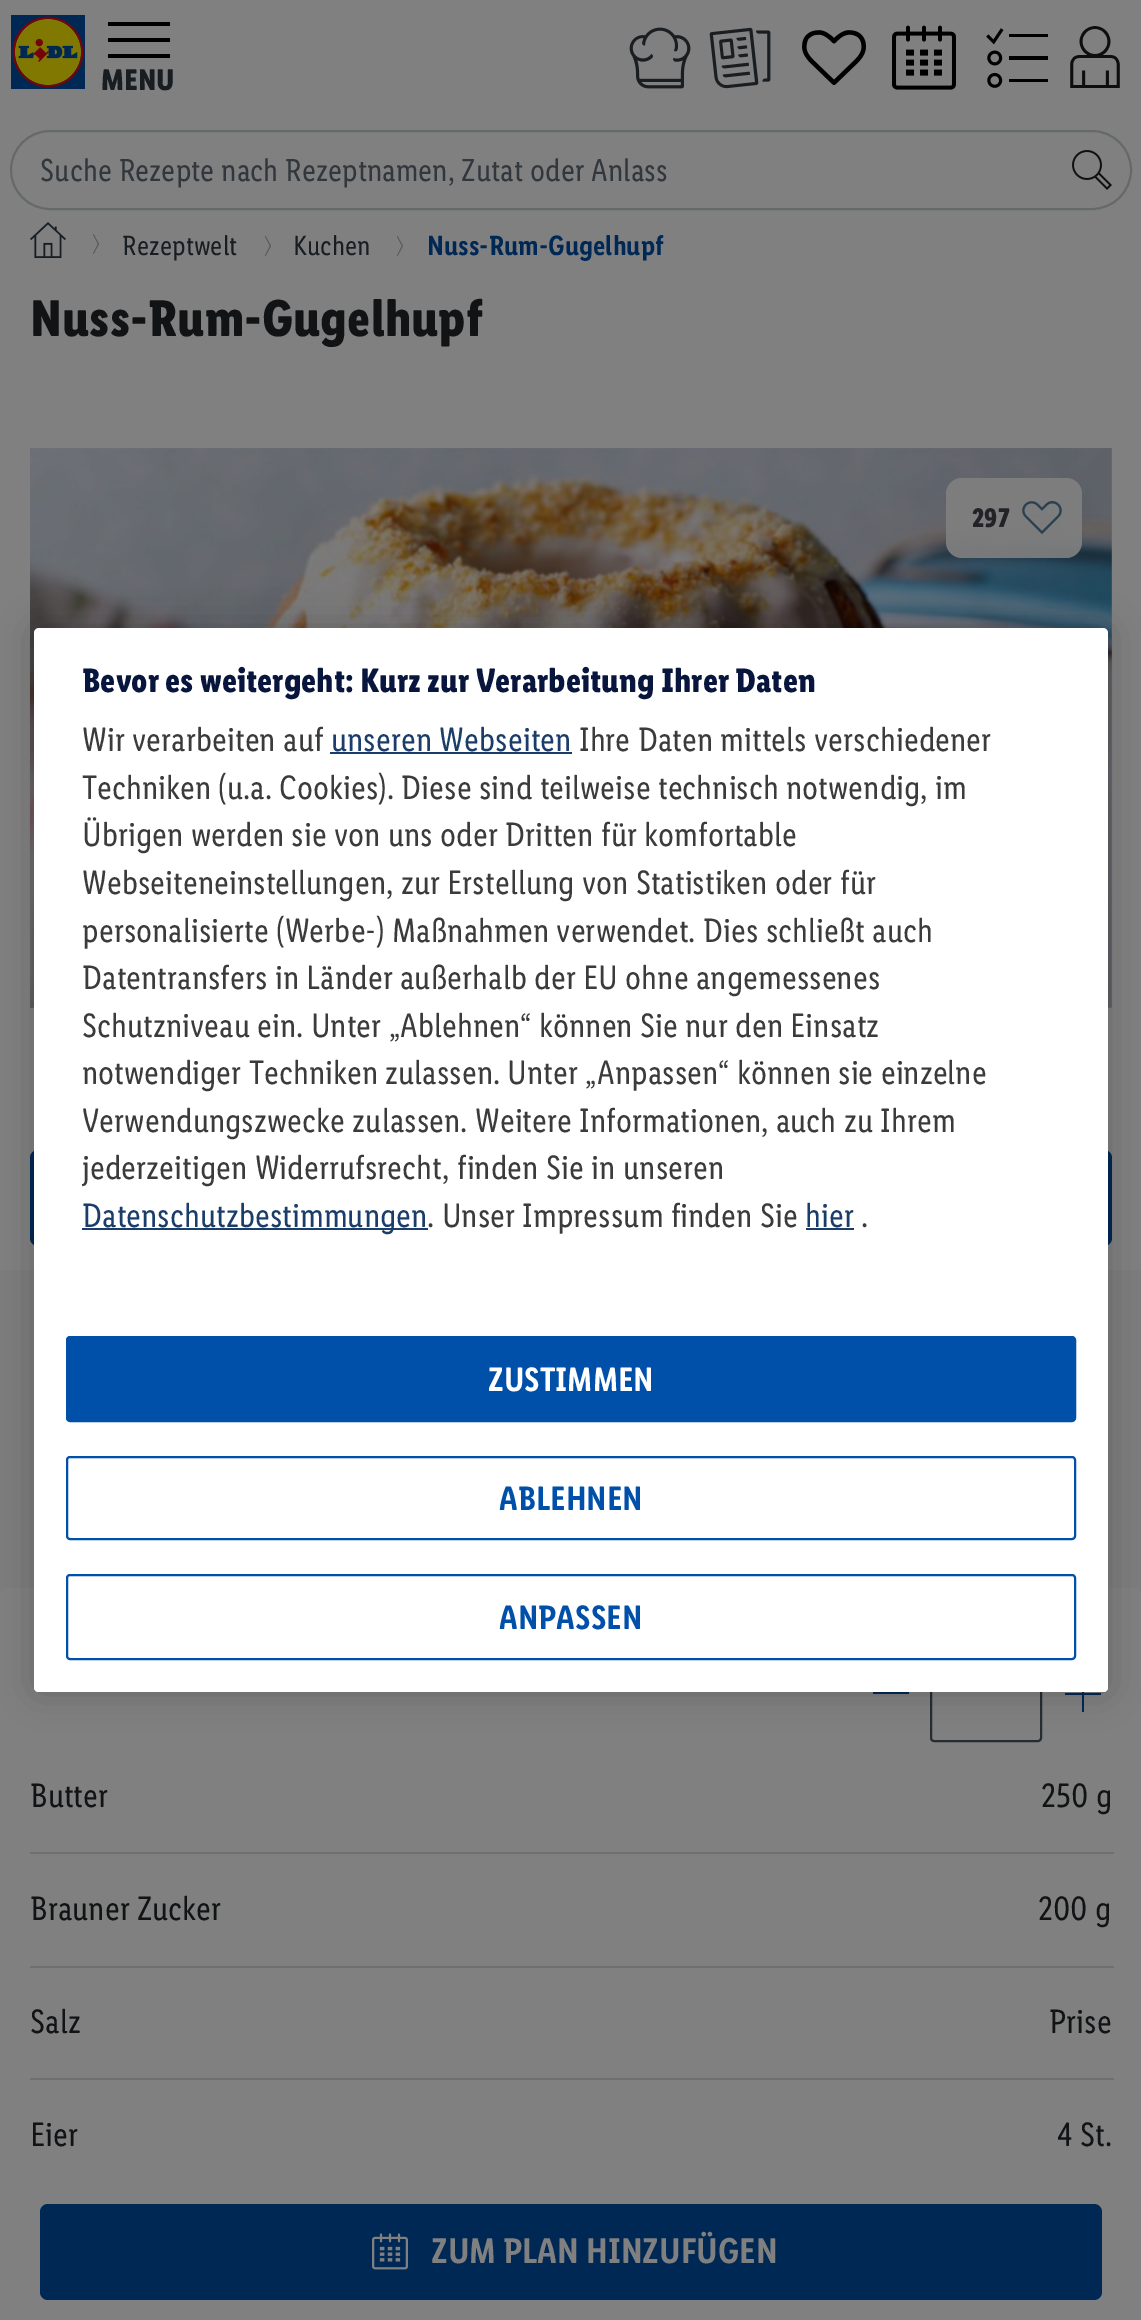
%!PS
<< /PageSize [1141 2320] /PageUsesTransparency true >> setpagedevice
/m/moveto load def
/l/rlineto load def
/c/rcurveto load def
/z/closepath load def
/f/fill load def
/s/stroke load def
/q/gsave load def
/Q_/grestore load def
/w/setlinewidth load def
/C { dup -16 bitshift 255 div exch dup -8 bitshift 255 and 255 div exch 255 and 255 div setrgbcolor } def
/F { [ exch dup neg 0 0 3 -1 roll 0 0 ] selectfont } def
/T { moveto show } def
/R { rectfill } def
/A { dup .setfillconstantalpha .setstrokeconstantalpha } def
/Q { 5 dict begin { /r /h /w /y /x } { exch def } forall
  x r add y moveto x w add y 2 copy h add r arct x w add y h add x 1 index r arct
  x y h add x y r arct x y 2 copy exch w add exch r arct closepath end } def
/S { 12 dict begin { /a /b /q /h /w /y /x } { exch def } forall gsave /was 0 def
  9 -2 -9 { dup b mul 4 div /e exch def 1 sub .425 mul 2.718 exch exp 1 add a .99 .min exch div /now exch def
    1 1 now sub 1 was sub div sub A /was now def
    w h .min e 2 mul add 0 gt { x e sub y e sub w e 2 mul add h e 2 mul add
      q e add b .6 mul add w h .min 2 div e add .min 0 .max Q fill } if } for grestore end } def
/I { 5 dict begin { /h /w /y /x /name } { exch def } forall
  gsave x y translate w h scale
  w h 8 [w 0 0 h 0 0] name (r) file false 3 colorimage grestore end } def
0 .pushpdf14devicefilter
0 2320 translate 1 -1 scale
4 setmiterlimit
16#808080 C
0 0 1141 2320 R
(1.rgb) 11 15 74 74 I
16#000000 C
108 22 m 62 0 l 0 4 l -62 0 l z 108 38 m 62 0 l 0 4 l -62 0 l z 108 54 m 62 0 l 0 4 l -62 0 l z f
/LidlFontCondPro-Bold 30 F
16#181D22 C
(MENU) 101 90 T
(2.rgb) 629 27 62 62 I
(3.rgb) 709 27 62 62 I
(4.rgb) 802 30 64 55 I
(5.rgb) 892 25 64 65 I
(6.rgb) 986 28 62 60 I
(7.rgb) 1070 26 50 62 I
16#66696B C
2 w
11 131 1120 78 39 Q s
/LidlFontCondPro-Regular 32 F
16#31373D C
(Suche Rezepte nach Rezeptnamen, Zutat oder Anlass) 40 181 T
(8.rgb) 1072 150 40 40 I
(9.rgb) 30 222 36 36 I
16#56585A C
93.5 234 m -.5 .5 l 5 9.5 l -5 9.5 l .5 .5 l 5.5 -10 l z f
/LidlFontCondPro-Regular 28 F
16#181D22 C
(Rezeptwelt) 122 255 T
16#56585A C
265.5 236 m -.5 .5 l 5 9.5 l -5 9.5 l .5 .5 l 5.5 -10 l z f
16#181D22 C
(Kuchen) 293 255 T
16#56585A C
397.5 236 m -.5 .5 l 5 9.5 l -5 9.5 l .5 .5 l 5.5 -10 l z f
/LidlFontCondPro-SemiBold 28 F
16#002855 C
(Nuss-Rum-Gugelhupf) 427 255 T
/LidlFontCondPro-Bold 52 F
16#111315 C
(Nuss-Rum-Gugelhupf) 30 336 T
(10.rgb) 30 448 1082 560 I
0.9 A
16#808080 C
946 478 136 80 16 Q f
/LidlFontCondPro-Bold 27 F
1 A
16#222227 C
(297) 972 527 T
(11.rgb) 1022 501 40 33 I
16#002855 C
30 1150 1082 96 8 Q f
16#7D7D7D C
0 1270 1141 326 R
16#808080 C
0 1588 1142 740 8 Q f
16#002855 C
873 1692 36 2 R
16#272C31 C
931 1647 110 94 3 Q s
16#002855 C
1082 1692 2 20 R
1065 1693 36 2 R
16#6F6F6F C
30 1852 1084 2 R
/LidlFontCondPro-Regular 34 F
16#111315 C
(Butter) 30 1807 T
(250 g) 1041 1807 T
16#6F6F6F C
30 1966 1084 2 R
16#111315 C
(Brauner Zucker) 30 1920 T
(200 g) 1038 1920 T
16#6F6F6F C
30 2078 1084 2 R
16#111315 C
(Salz) 30 2033 T
(Prise) 1049 2033 T
(Eier) 30 2146 T
(4 St.) 1057 2146 T
16#002855 C
40 2204 1062 96 8 Q f
(12.rgb) 372 2233 36 37 I
/LidlFontCondPro-SemiBold 36 F
16#808080 C
(ZUM PLAN HINZUFÜGEN) 431 2263 T
16#000000 C
34 628 1074 1064 5 18 .2 S
16#FFFFFF C
34 628 1074 1064 5 Q f
/LidlFontCondPro-Bold 34 F
16#08163D C
(Bevor es weitergeht: Kurz zur Verarbeitung Ihrer Daten) 82 692 T
/LidlFontCondPro-Regular 34 F
16#3B3B3B C
(Wir verarbeiten auf) 82 751 T
16#1B3D6A C
(unseren Webseiten) 331 751 T
330 752 242 2 R
16#3B3B3B C
(Ihre Daten mittels verschiedener) 579 751 T
(Techniken \(u.a. Cookies\). Diese sind teilweise technisch notwendig, im) 82 799 T
(Übrigen werden sie von uns oder Dritten für komfortable) 82 846 T
(Webseiteneinstellungen, zur Erstellung von Statistiken oder für) 82 894 T
(personalisierte \(Werbe-\) Maßnahmen verwendet. Dies schließt auch) 82 942 T
(Datentransfers in Länder außerhalb der EU ohne angemessenes) 82 989 T
(Schutzniveau ein. Unter „Ablehnen“ können Sie nur den Einsatz) 82 1037 T
(notwendiger Techniken zulassen. Unter „Anpassen“ können sie einzelne) 82 1084 T
(Verwendungszwecke zulassen. Weitere Informationen, auch zu Ihrem) 82 1132 T
82 1179 m .25 0 32 (jederzeitigen Widerrufsrecht, finden Sie in unseren) widthshow
16#1B3D6A C
82 1228 346 2 R
(Datenschutzbestimmungen) 82 1227 T
16#3B3B3B C
(. Unser Impressum finden Sie) 427 1227 T
16#1B3D6A C
(hier) 805 1227 T
806 1228 48 2 R
16#3B3B3B C
(.) 861 1227 T
16#FFFFFF C
34 1304 m 1074 0 l 0 383 l 0 3 -2 5 -5 5 c -1064 0 l -3 0 -5 -2 -5 -5 c z f
16#0050AA C
67 1337 1008 84 3 Q q f Q_
s
/LidlFontCondPro-SemiBold 34 F
16#FFFFFF C
(ZUSTIMMEN) 488 1391 T
16#0050AA C
67 1457 1008 82 3 Q s
(ABLEHNEN) 499 1510 T
67 1575 1008 84 3 Q s
(ANPASSEN) 499 1629 T
.poppdf14devicefilter showpage
